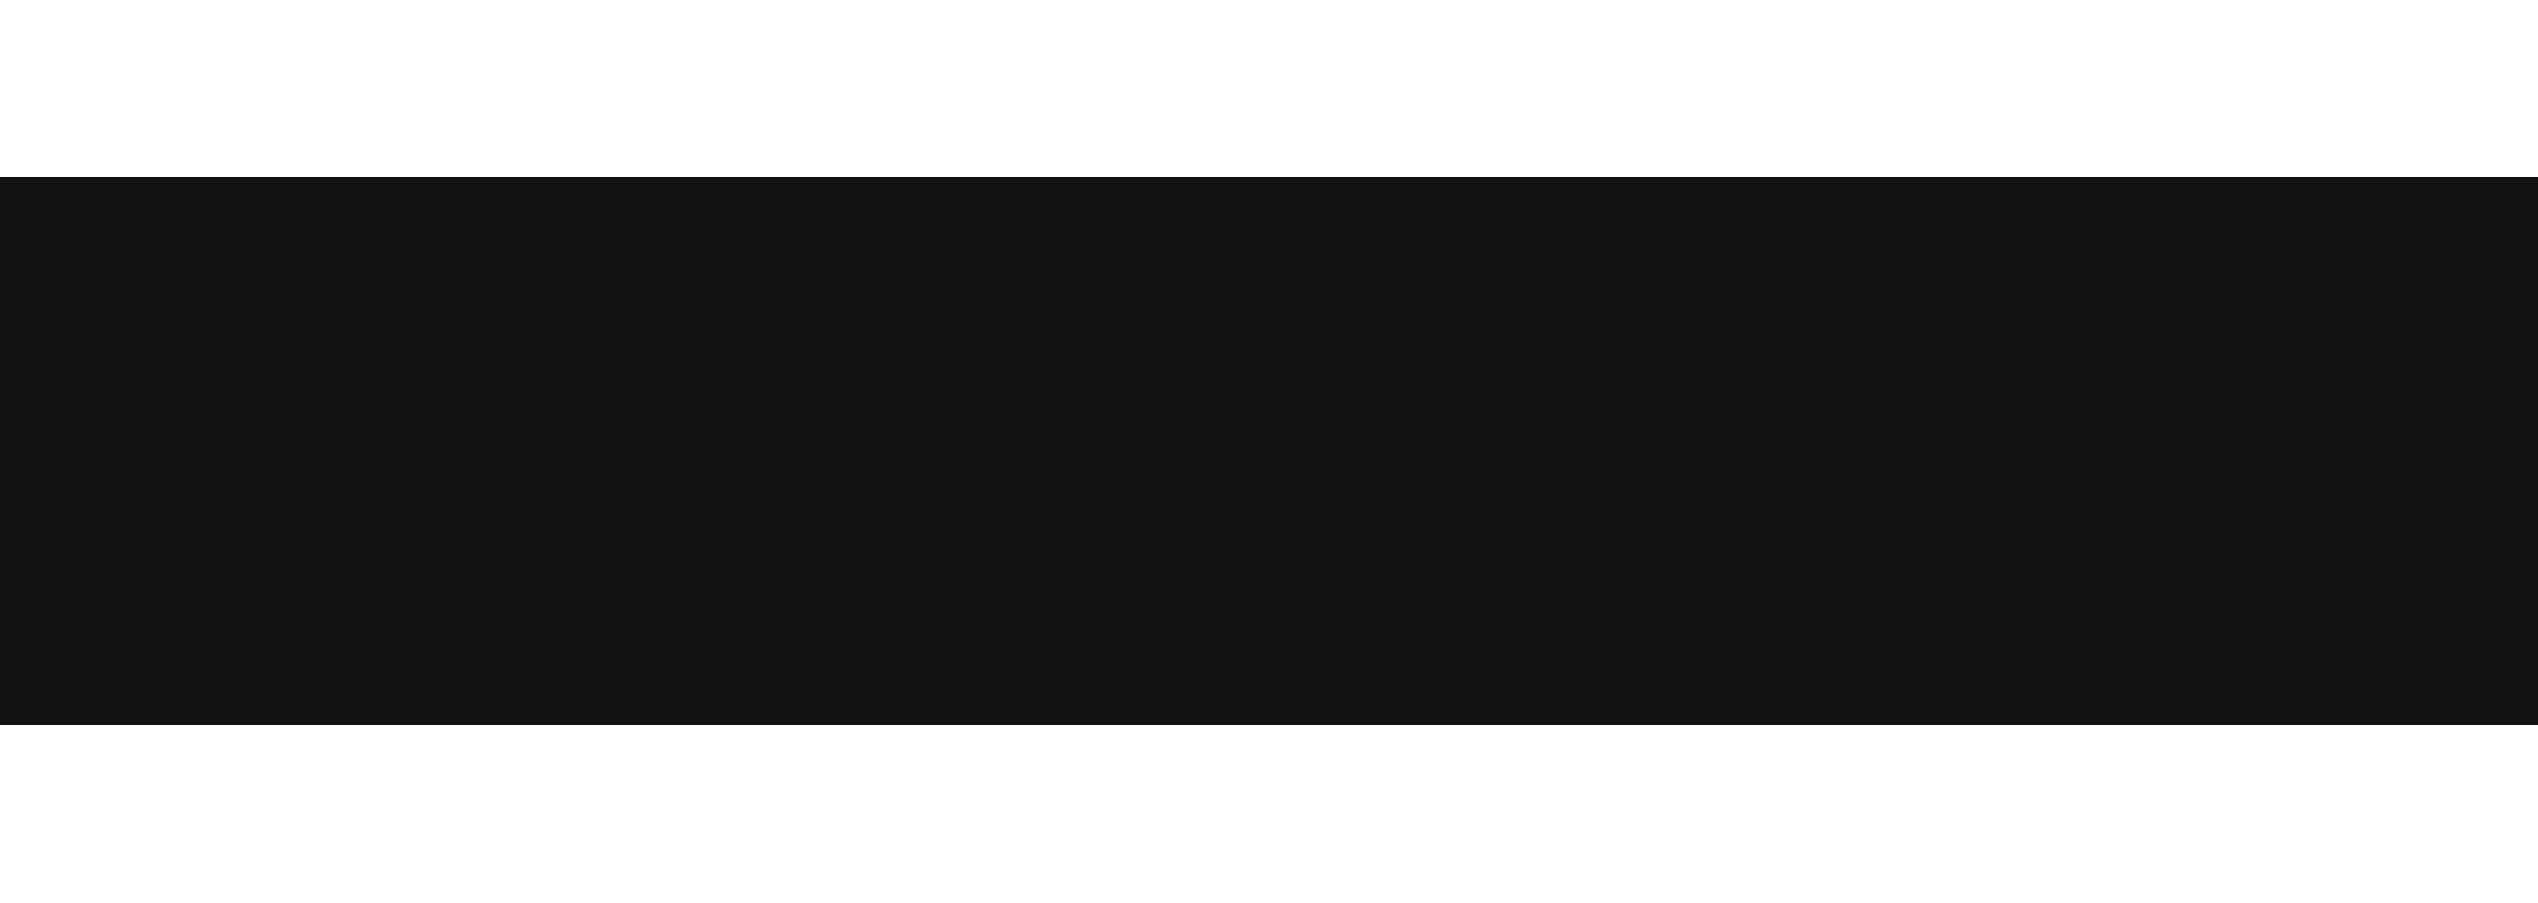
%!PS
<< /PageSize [2538 903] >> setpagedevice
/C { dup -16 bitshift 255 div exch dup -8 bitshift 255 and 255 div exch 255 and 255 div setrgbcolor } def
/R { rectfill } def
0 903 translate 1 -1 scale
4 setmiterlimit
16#FFFFFF C
0 0 2538 903 R
16#111111 C
0 177 2538 548 R
showpage
